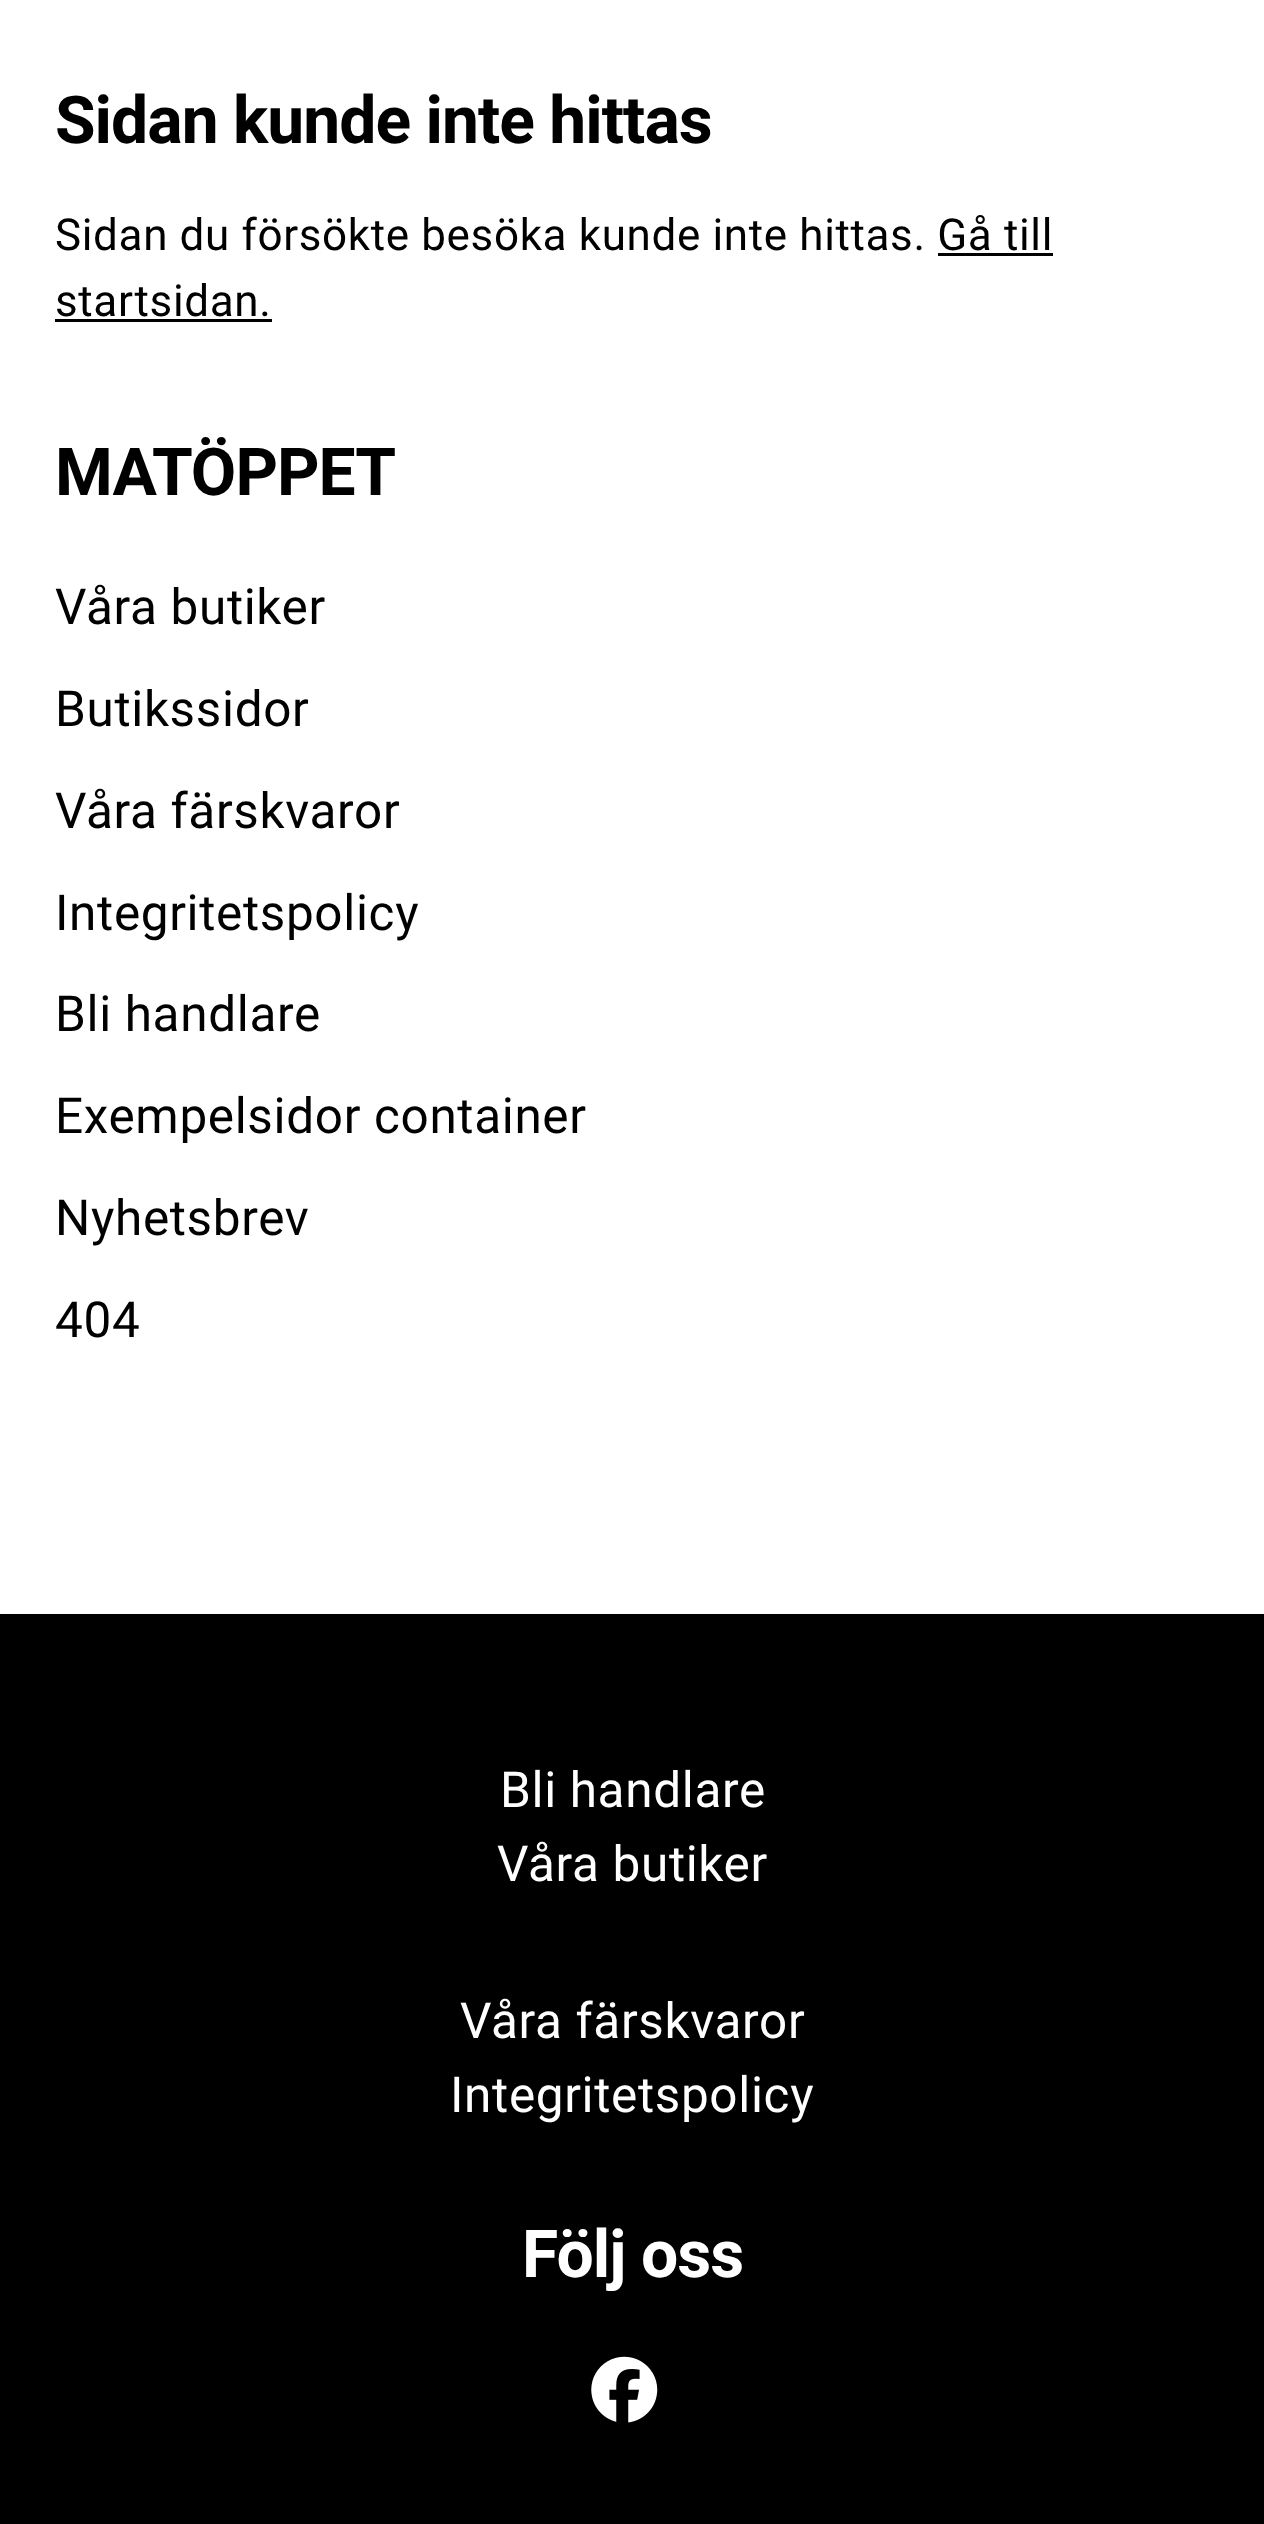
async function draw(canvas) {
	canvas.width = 1264;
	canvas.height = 2524;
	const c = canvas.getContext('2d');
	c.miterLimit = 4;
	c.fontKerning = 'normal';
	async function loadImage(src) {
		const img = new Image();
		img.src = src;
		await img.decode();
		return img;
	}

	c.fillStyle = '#fff';
	c.fillRect(0, 0, 1264, 2524);
	c.letterSpacing = '-1px';
	c.font = 'bold 66px Roboto';
	c.fillStyle = '#000';
	c.fillText('Sidan kunde inte hittas', 55, 143);
	c.letterSpacing = '0.65px';
	c.font = '44px Roboto';
	c.fillText('Sidan du försökte besöka kunde inte hittas. Gå till', 55, 250);
	c.fillText('startsidan.', 55, 316);
	c.fillRect(938, 253, 115, 3);
	c.fillRect(55, 319, 217, 3);
	c.letterSpacing = '-1px';
	c.font = 'bold 66px Roboto';
	c.fillText('MATÖPPET', 55, 495);
	c.letterSpacing = '0.65px';
	c.font = '49.5px Roboto';
	for (const [text, x, y] of [
		['Våra butiker', 55, 624],
		['Butikssidor', 55, 726],
		['Våra färskvaror', 55, 828],
		['Integritetspolicy', 55, 930],
		['Bli handlare', 55, 1031],
		['Exempelsidor container', 55, 1133],
		['Nyhetsbrev', 55, 1235],
		['404', 55, 1337],
	]) {
		c.fillText(text, x, y);
	}
	c.fillRect(0, 1614, 1264, 910);
	c.fillStyle = '#fff';
	for (const [text, x, y] of [
		['Bli handlare', 500, 1807],
		['Våra butiker', 497, 1881],
		['Våra färskvaror', 460, 2038],
		['Integritetspolicy', 450, 2112],
	]) {
		c.fillText(text, x, y);
	}
	c.letterSpacing = '-1px';
	c.font = 'bold 66px Roboto';
	c.fillText('Följ oss', 522, 2277);
	c.drawImage(await loadImage('img1.png'), 591, 2356, 67, 67);
}

draw(document.querySelector('canvas'));
